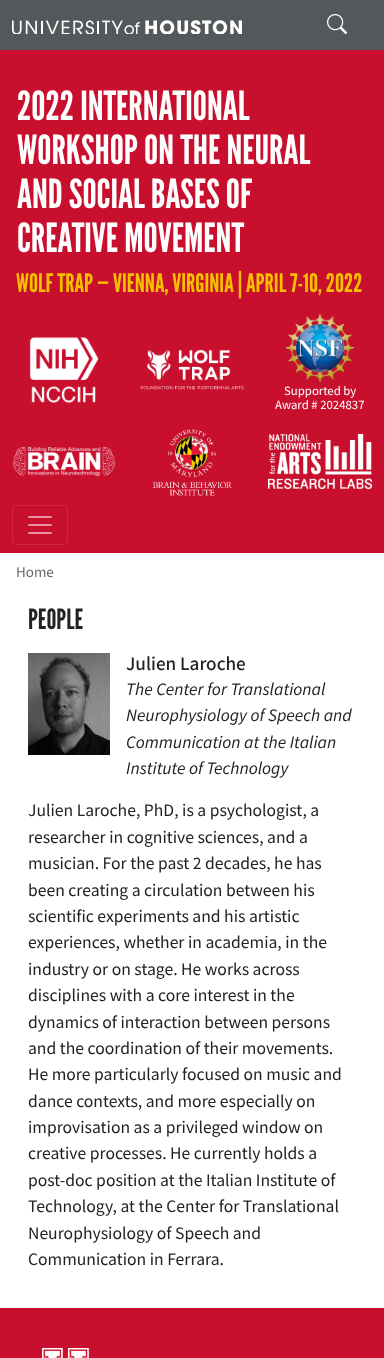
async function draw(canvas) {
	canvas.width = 384;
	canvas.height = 1358;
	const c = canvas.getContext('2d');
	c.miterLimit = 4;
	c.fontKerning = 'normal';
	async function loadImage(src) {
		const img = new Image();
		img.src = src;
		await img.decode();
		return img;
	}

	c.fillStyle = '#fff';
	c.fillRect(0, 0, 384, 1358);
	c.fillStyle = '#54585a';
	c.fillRect(0, 0, 384, 50);
	c.drawImage(await loadImage('img1.png'), 12, 20, 230, 14);
	c.drawImage(await loadImage('img2.png'), 327, 14, 20, 20);
	c.fillStyle = '#c8102e';
	c.fillRect(0, 50, 384, 503);
	c.font = '40px League Gothic';
	c.fillStyle = '#fffeff';
	for (const [text, x, y] of [
		['2022 INTERNATIONAL', 17, 120],
		['WORKSHOP ON THE NEURAL', 17, 164],
		['AND SOCIAL BASES OF', 17, 208],
		['CREATIVE MOVEMENT', 17, 252],
	]) {
		c.fillText(text, x, y);
	}
	c.font = '25.6px League Gothic';
	c.fillStyle = '#f6be00';
	c.fillText('WOLF TRAP — VIENNA, VIRGINIA | APRIL 7-10, 2022', 16, 292);
	c.drawImage(await loadImage('img3.png'), 29, 337, 70, 66);
	c.drawImage(await loadImage('img4.png'), 140, 349, 104, 41);
	c.drawImage(await loadImage('img5.png'), 286, 314, 69, 69);
	c.font = '12.75px Source Sans Pro';
	c.fillStyle = '#fffeff';
	c.fillText('Supported by', 284, 395);
	c.fillText('Award # 2024837', 275, 409);
	c.drawImage(await loadImage('img6.png'), 12, 447, 104, 29);
	c.drawImage(await loadImage('img7.png'), 152, 429, 80, 67);
	c.drawImage(await loadImage('img8.png'), 268, 434, 104, 55);
	c.beginPath();
	c.roundRect(12.5, 505.5, 55, 39, 3.5);
	c.strokeStyle = '#ce2843';
	c.stroke();
	c.drawImage(await loadImage('img9.png'), 28, 516, 24, 18);
	c.font = '15px Source Sans Pro';
	c.fillStyle = '#666';
	c.fillText('Home', 16, 577);
	c.font = '28px League Gothic';
	c.fillStyle = '#222';
	c.fillText('PEOPLE', 28, 629);
	c.drawImage(await loadImage('img10.png'), 28, 653, 82, 102);
	c.font = '500 19.25px "Source Sans 3"';
	c.fillText('Julien Laroche', 126, 670);
	c.font = 'italic 17.6px Source Sans Pro';
	for (const [text, x, y] of [
		['The Center for Translational', 126, 695],
		['Neurophysiology of Speech and', 126, 721],
		['Communication at the Italian', 126, 748],
		['Institute of Technology', 126, 774],
	]) {
		c.fillText(text, x, y);
	}
	c.font = '17.6px Source Sans Pro';
	for (const [text, x, y] of [
		['Julien Laroche, PhD, is a psychologist, a', 28, 816],
		['researcher in cognitive sciences, and a', 28, 843],
		['musician. For the past 2 decades, he has', 28, 869],
		['been creating a circulation between his', 28, 896],
		['scientific experiments and his artistic', 28, 922],
		['experiences, whether in academia, in the', 28, 948],
		['industry or on stage. He works across', 28, 975],
		['disciplines with a core interest in the', 28, 1001],
		['dynamics of interaction between persons', 28, 1028],
		['and the coordination of their movements.', 28, 1054],
		['He more particularly focused on music and', 28, 1080],
		['dance contexts, and more especially on', 28, 1107],
		['improvisation as a privileged window on', 28, 1133],
		['creative processes. He currently holds a', 28, 1159],
		['post-doc position at the Italian Institute of', 28, 1186],
		['Technology, at the Center for Translational', 28, 1212],
		['Neurophysiology of Speech and', 28, 1239],
		['Communication in Ferrara.', 28, 1265],
	]) {
		c.fillText(text, x, y);
	}
	c.fillStyle = '#c8102e';
	c.fillRect(0, 1308, 384, 50);
	c.drawImage(await loadImage('img11.png'), 42, 1348, 48, 10);
}

draw(document.querySelector('canvas'));
